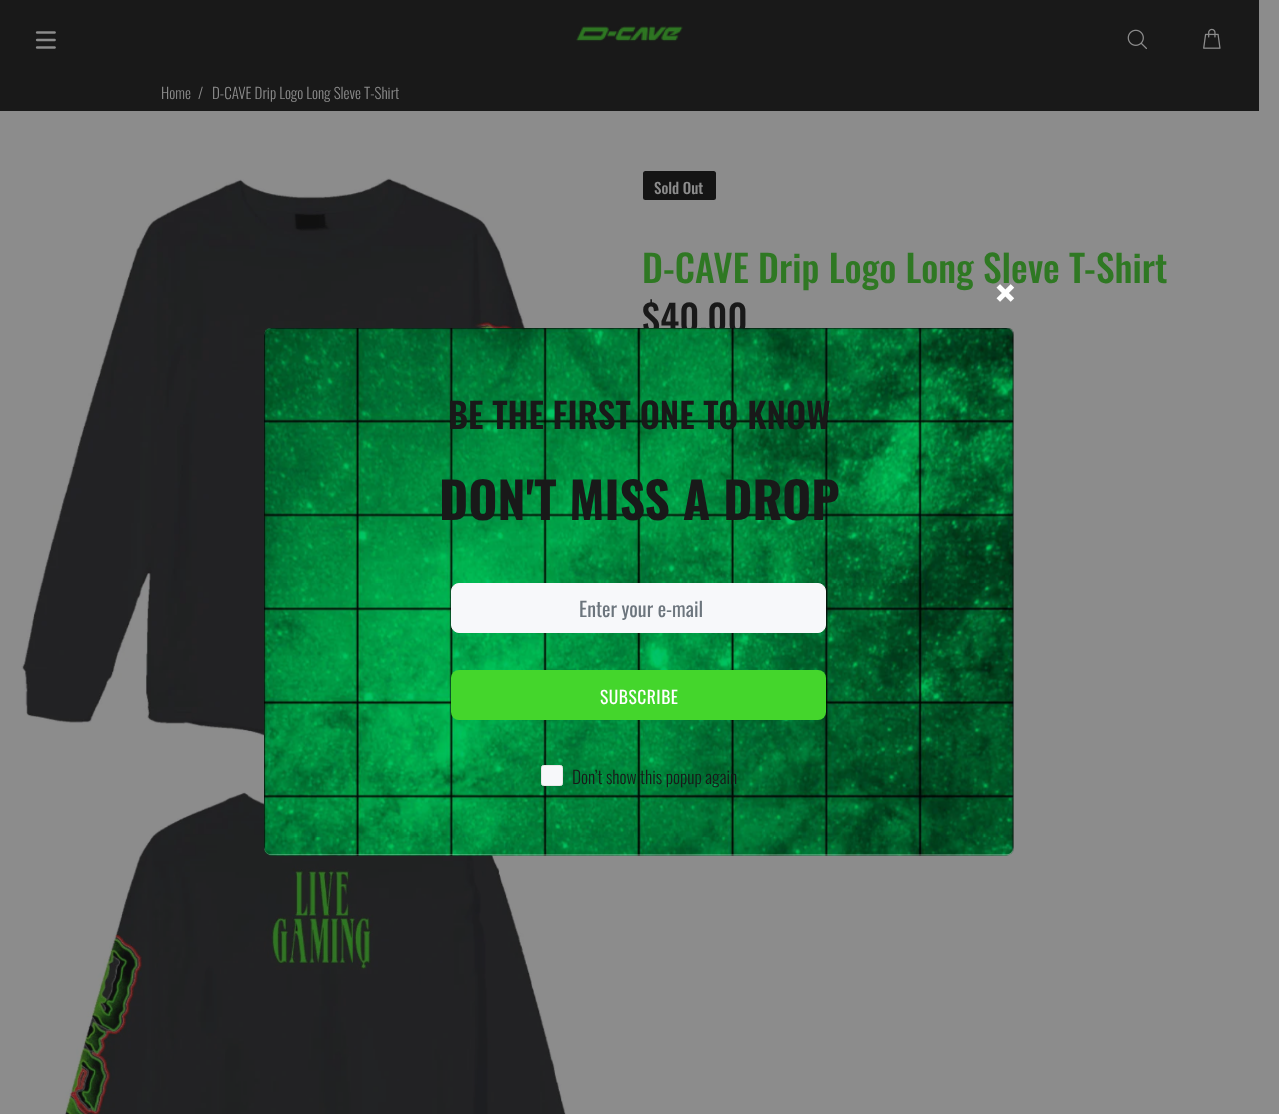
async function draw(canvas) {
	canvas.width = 1279;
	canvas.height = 1114;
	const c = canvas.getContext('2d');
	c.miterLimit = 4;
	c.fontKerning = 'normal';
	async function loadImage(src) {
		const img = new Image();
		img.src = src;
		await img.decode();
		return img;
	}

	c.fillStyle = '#8c8c8c';
	c.fillRect(0, 0, 1279, 1114);
	c.fillStyle = '#191919';
	c.fillRect(0, 0, 1259, 111);
	c.drawImage(await loadImage('img1.png'), 35, 31, 21, 18);
	c.drawImage(await loadImage('img2.png'), 576, 26, 107, 16);
	c.drawImage(await loadImage('img3.png'), 1127, 29, 20, 21);
	c.drawImage(await loadImage('img4.png'), 1203, 28, 18, 21);
	c.font = '300 15px Oswald';
	c.fillStyle = '#8c8c8c';
	for (const [text, x, y] of [
		['Home', 161, 99],
		['/', 198, 99],
		['D-CAVE Drip Logo Long Sleve T-Shirt', 212, 99],
	]) {
		c.fillText(text, x, y);
	}
	c.drawImage(await loadImage('img5.png'), 21, 177, 584, 565);
	c.drawImage(await loadImage('img6.png'), 65, 791, 501, 323);
	c.fillStyle = '#141414';
	c.beginPath();
	c.roundRect(643, 171, 73, 29, 2.5);
	c.fill();
	c.font = '500 15px Oswald';
	c.fillStyle = '#8c8c8c';
	c.fillText('Sold Out', 654, 194);
	c.letterSpacing = '0.05px';
	c.font = '500 37.5px Oswald';
	c.fillStyle = '#2f7823';
	c.fillText('D-CAVE Drip Logo Long Sleve T-Shirt', 642, 283);
	c.letterSpacing = '0px';
	c.fillStyle = '#191919';
	c.fillText('$40.00', 642, 333);
	c.drawImage(await loadImage('img7.png'), 996, 284, 19, 18);
	c.fillStyle = '#fff';
	c.beginPath();
	c.roundRect(264, 328, 750, 527, 8);
	c.fill();
	c.drawImage(await loadImage('img8.png'), 264, 328, 750, 528);
	c.font = '600 35px Oswald';
	c.fillStyle = '#191919';
	c.fillText('BE THE FIRST ONE TO KNOW', 448, 429);
	c.font = 'bold 50px Oswald';
	c.fillText('DON\'T MISS A DROP', 439, 520);
	c.fillStyle = '#f7f8fa';
	c.beginPath();
	c.roundRect(451.5, 583.5, 374, 49, 7.5);
	c.fill();
	c.strokeStyle = '#f7f8fa';
	c.stroke();
	c.font = '20px Oswald';
	c.fillStyle = '#6c757d';
	c.fillText('Enter your e-mail', 579, 617);
	c.fillStyle = '#44d62c';
	c.beginPath();
	c.roundRect(451, 670, 375, 50, 8);
	c.fill();
	c.letterSpacing = '0.5px';
	c.font = '17.5px Oswald';
	c.fillStyle = '#fff';
	c.fillText('SUBSCRIBE', 600, 704);
	c.fillStyle = '#f7f8fa';
	c.beginPath();
	c.roundRect(541.5, 765.5, 21, 20, 2);
	c.fill();
	c.strokeStyle = '#e9e7e7';
	c.stroke();
	c.letterSpacing = '0px';
	c.font = '300 17.5px Oswald';
	c.fillStyle = '#191919';
	c.fillText('Don’t show this popup again', 572, 784);
}

draw(document.querySelector('canvas'));
